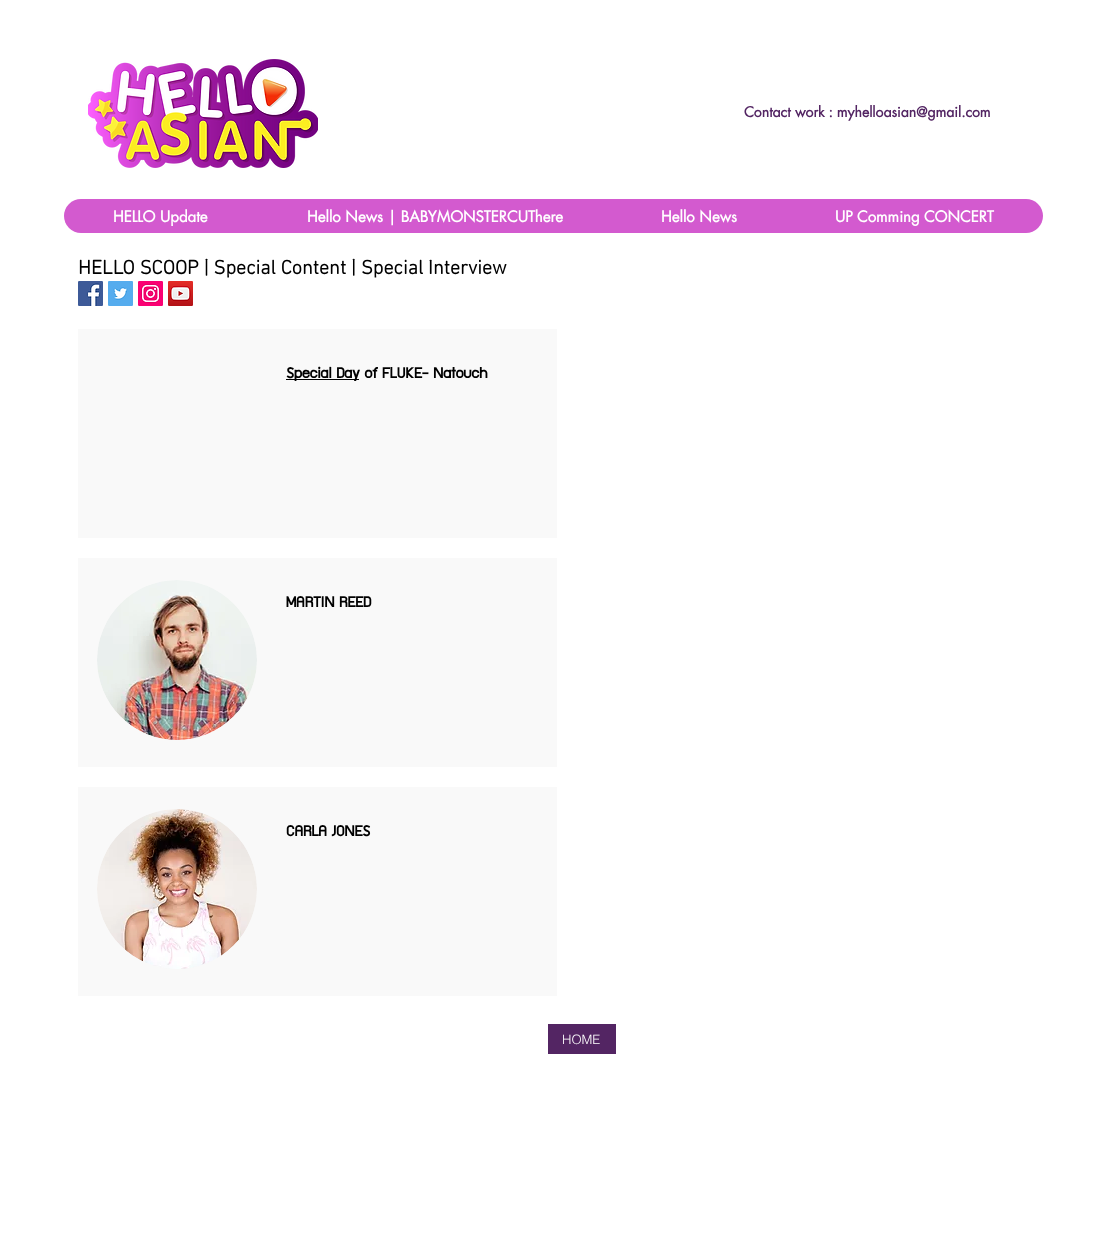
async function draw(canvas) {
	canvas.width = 1107;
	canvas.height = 1251;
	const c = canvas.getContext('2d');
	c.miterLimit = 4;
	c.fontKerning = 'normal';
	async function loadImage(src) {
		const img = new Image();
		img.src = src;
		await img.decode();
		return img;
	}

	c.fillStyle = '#fff';
	c.fillRect(0, 0, 1107, 1251);
	c.drawImage(await loadImage('img1.png'), 88, 59, 230, 109);
	c.font = 'bold 14px futura';
	c.fillStyle = '#532563';
	c.fillText('Contact work : myhelloasian@gmail.com', 744, 117);
	c.fillStyle = '#d35acf';
	c.beginPath();
	c.roundRect(64, 199, 979, 34, 17);
	c.fill();
	c.font = 'bold 15px futura';
	c.fillStyle = '#fff';
	for (const [text, x, y] of [
		['HELLO Update', 113, 222],
		['Hello News | BABYMONSTERCUThere', 307, 222],
		['Hello News', 661, 222],
		['UP Comming CONCERT', 835, 222],
	]) {
		c.fillText(text, x, y);
	}
	c.font = 'bold 20px "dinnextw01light"';
	c.fillStyle = '#000';
	c.fillText('HELLO SCOOP | Special Content | Special Interview', 78, 274);
	c.drawImage(await loadImage('img2.png'), 78, 281, 25, 25);
	c.drawImage(await loadImage('img3.png'), 108, 281, 25, 25);
	c.drawImage(await loadImage('img4.png'), 138, 281, 25, 25);
	c.drawImage(await loadImage('img5.png'), 168, 281, 25, 25);
	c.fillStyle = '#f9f9f9';
	c.fillRect(78, 329, 479, 209);
	c.fillStyle = '#000';
	c.fillRect(286, 379, 73, 1);
	c.font = 'bold 17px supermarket';
	c.fillText('Special Day of FLUKE- Natouch', 286, 378);
	c.fillStyle = '#f9f9f9';
	c.fillRect(78, 558, 479, 209);
	c.drawImage(await loadImage('img6.png'), 97, 580, 160, 160);
	c.fillStyle = '#000';
	c.fillText('MARTIN REED', 286, 607);
	c.fillStyle = '#f9f9f9';
	c.fillRect(78, 787, 479, 209);
	c.drawImage(await loadImage('img7.png'), 97, 809, 160, 160);
	c.fillStyle = '#000';
	c.fillText('CARLA JONES', 286, 836);
	c.fillStyle = '#532563';
	c.fillRect(548, 1024, 68, 30);
	c.font = '300 13px helvetica';
	c.fillStyle = '#fff';
	c.fillText('HOME', 562, 1044);
}

draw(document.querySelector('canvas'));
